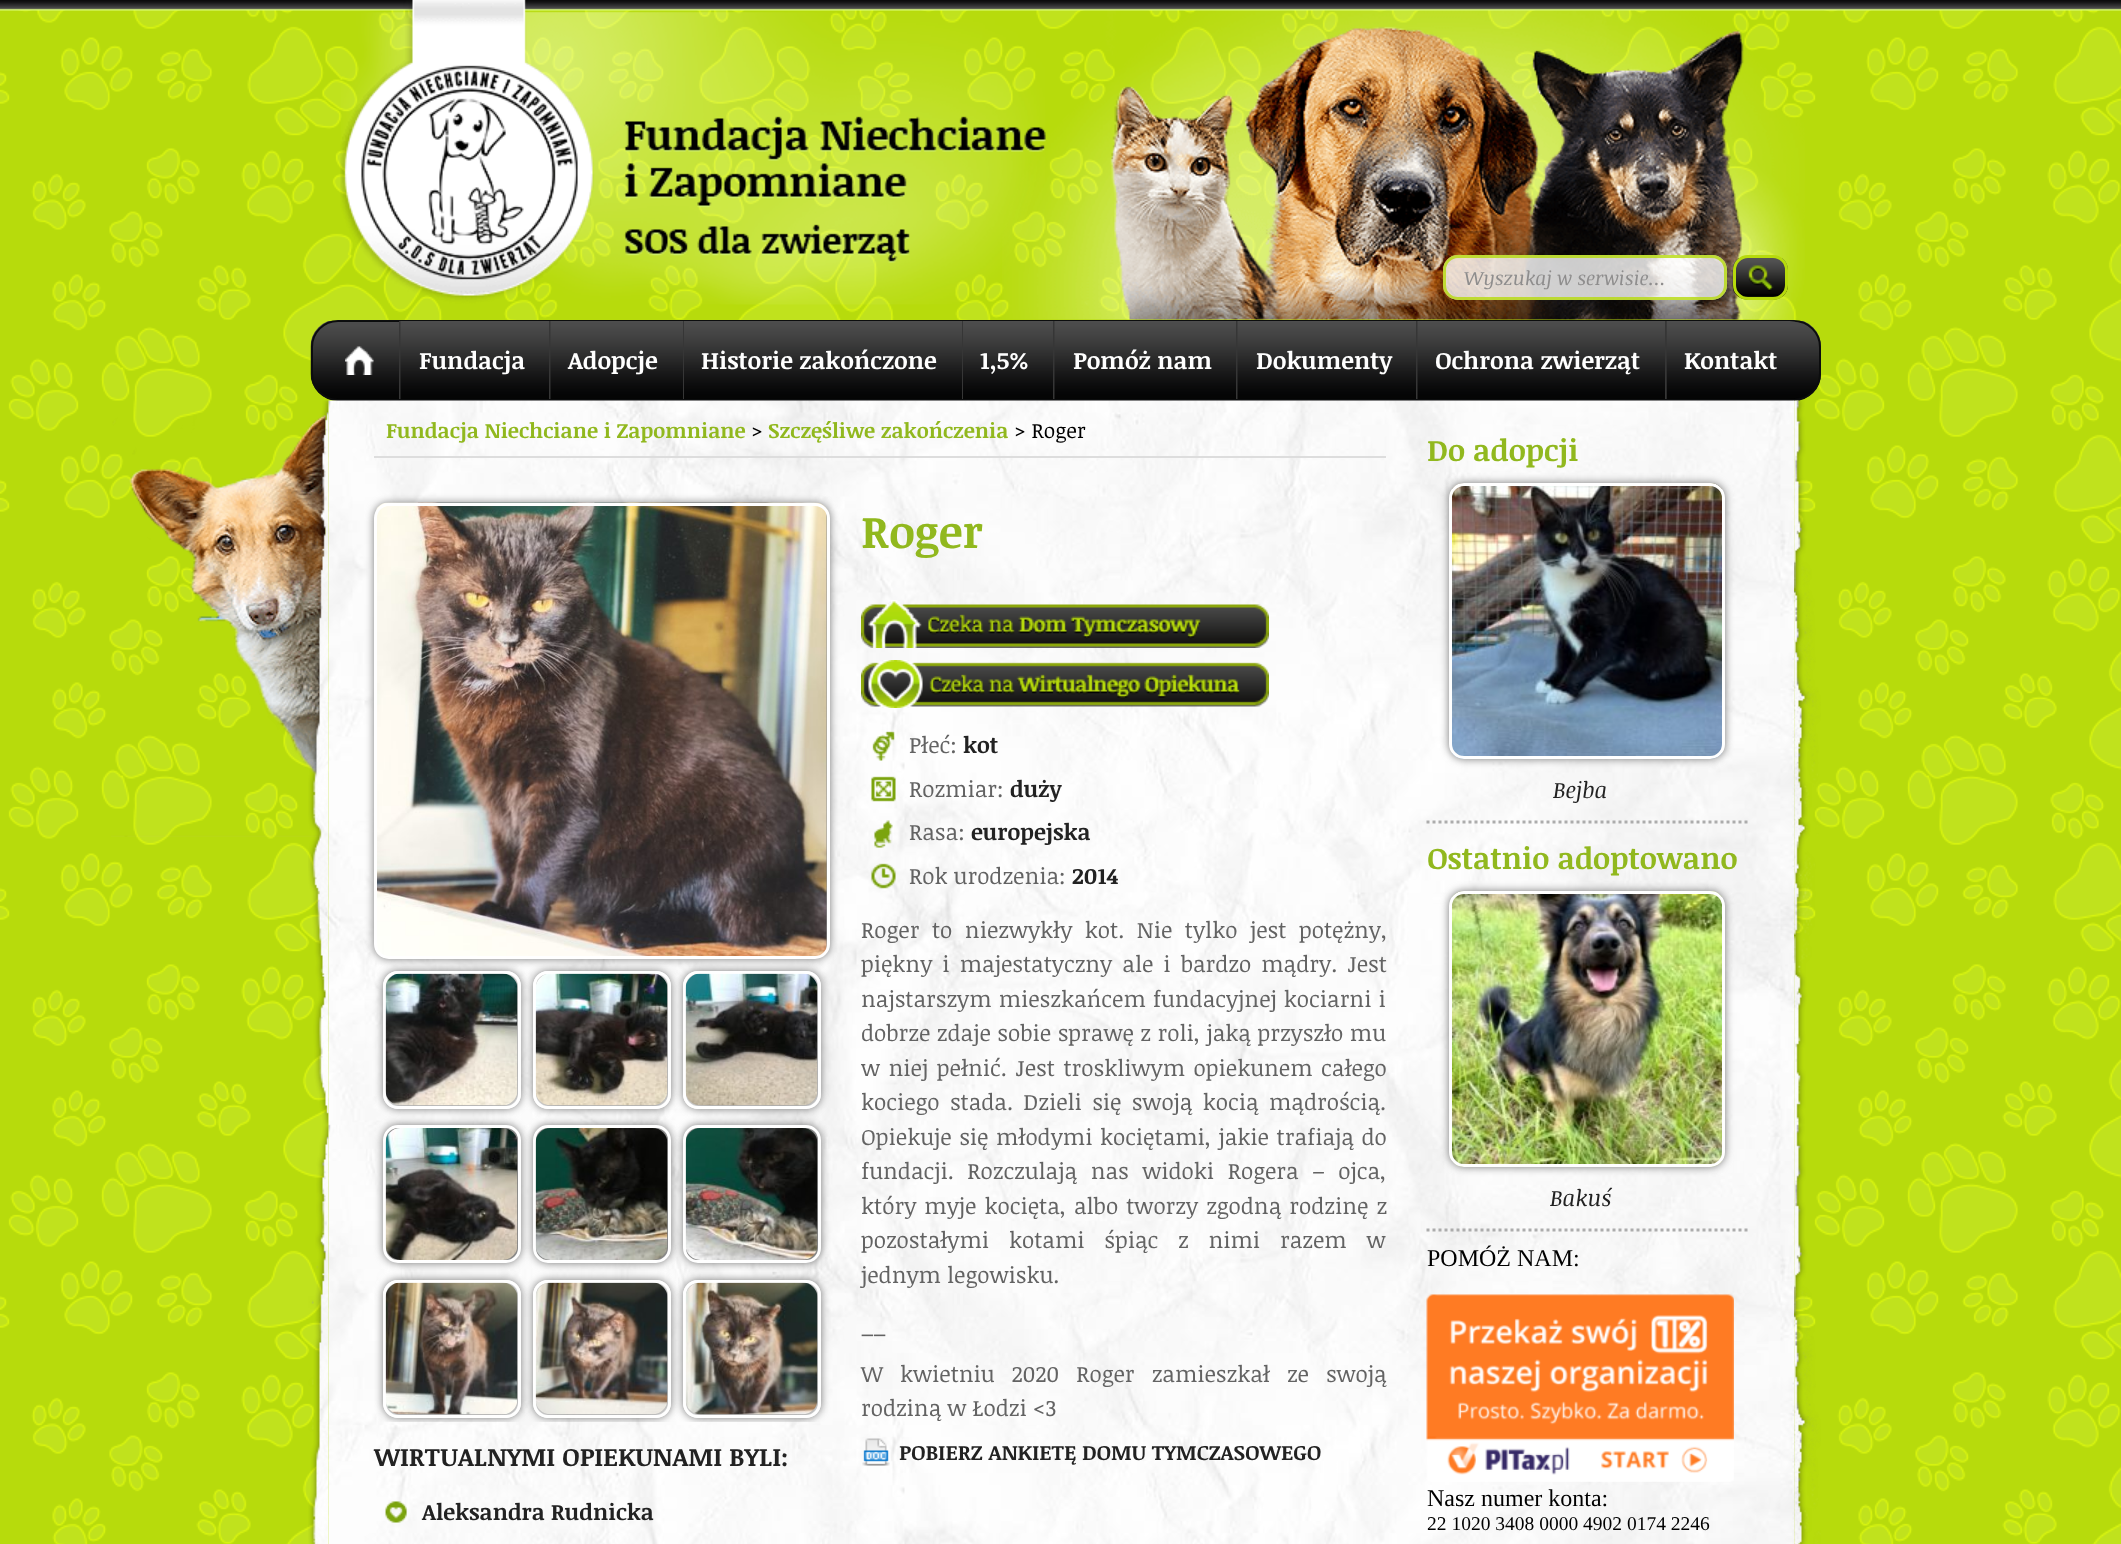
async function draw(canvas) {
	canvas.width = 2121;
	canvas.height = 1544;
	const c = canvas.getContext('2d');
	c.miterLimit = 4;
	c.fontKerning = 'normal';
	async function loadImage(src) {
		const img = new Image();
		img.src = src;
		await img.decode();
		return img;
	}

	c.fillStyle = '#fff';
	c.fillRect(0, 0, 2121, 1544);
	c.drawImage(await loadImage('img1.png'), 0, 10, 2121, 1534);
	c.drawImage(await loadImage('img5.png'), 1002, 10, 803, 310);
	c.drawImage(await loadImage('img2.png'), 0, 0, 2121, 11);
	c.drawImage(await loadImage('img3.png'), 111, 415, 215, 422);
	c.drawImage(await loadImage('img4.png'), 340, 0, 706, 305);
	c.fillStyle = '#ffffffcc';
	c.beginPath();
	c.roundRect(1443, 255, 284, 45, 15);
	c.fill();
	c.beginPath();
	c.roundRect(1444.5, 256.5, 281, 42, 13.5);
	c.strokeStyle = '#b7db0ccc';
	c.lineWidth = 3;
	c.stroke();
	c.font = 'italic 19.5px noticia';
	c.fillStyle = '#8e8d8d';
	c.fillText('Wyszukaj w serwisie...', 1464, 285);
	c.drawImage(await loadImage('img6.png'), 1732, 258, 56, 42);
	c.beginPath();
	c.roundRect(1734.5, 256.5, 52, 42, 13.5);
	c.strokeStyle = '#b7db0c';
	c.stroke();
	c.drawImage(await loadImage('img7.png'), 310, 321, 1511, 80);
	c.beginPath();
	c.roundRect(312, 321, 1508, 79, 26);
	c.strokeStyle = '#0c0d0e';
	c.lineWidth = 2;
	c.stroke();
	c.drawImage(await loadImage('img8.png'), 345, 346, 29, 29);
	c.fillStyle = '#363636';
	c.fillRect(399, 321, 2, 78);
	c.drawImage(await loadImage('img9.png'), 400, 321, 149, 78);
	c.fillRect(549, 321, 2, 78);
	c.font = 'bold 24px noticia';
	c.fillStyle = '#fff';
	c.fillText('Fundacja', 419, 369);
	c.drawImage(await loadImage('img10.png'), 550, 321, 133, 78);
	c.fillStyle = '#363636';
	c.fillRect(683, 321, 1, 78);
	c.fillStyle = '#fff';
	c.fillText('Adopcje', 568, 369);
	c.drawImage(await loadImage('img11.png'), 684, 321, 278, 78);
	c.fillStyle = '#363636';
	c.fillRect(962, 321, 1, 78);
	c.fillStyle = '#fff';
	c.fillText('Historie zakończone', 701, 369);
	c.drawImage(await loadImage('img12.png'), 963, 321, 90, 78);
	c.fillStyle = '#363636';
	c.fillRect(1053, 321, 2, 78);
	c.fillStyle = '#fff';
	c.fillText('1,5%', 980, 369);
	c.drawImage(await loadImage('img13.png'), 1054, 321, 182, 78);
	c.fillStyle = '#363636';
	c.fillRect(1236, 321, 2, 78);
	c.fillStyle = '#fff';
	c.fillText('Pomóż nam', 1073, 369);
	c.drawImage(await loadImage('img14.png'), 1237, 321, 179, 78);
	c.fillStyle = '#363636';
	c.fillRect(1416, 321, 2, 78);
	c.fillStyle = '#fff';
	c.fillText('Dokumenty', 1256, 369);
	c.drawImage(await loadImage('img15.png'), 1417, 321, 248, 78);
	c.fillStyle = '#363636';
	c.fillRect(1665, 321, 2, 78);
	c.fillStyle = '#fff';
	c.fillText('Ochrona zwierząt', 1435, 369);
	c.drawImage(await loadImage('img16.png'), 1666, 321, 133, 78);
	c.fillText('Kontakt', 1684, 369);
	c.drawImage(await loadImage('img17.png'), 308, 400, 1513, 1144);
	c.drawImage(await loadImage('img18.png'), 328, 400, 1466, 1144);
	c.fillStyle = '#ddd';
	c.fillRect(374, 456, 1012, 2);
	c.font = 'bold 21px noticia';
	c.fillStyle = '#91b81e';
	c.fillText('Fundacja Niechciane i Zapomniane', 386, 438);
	c.font = '21px noticia';
	c.fillStyle = '#000';
	c.fillText('>', 751, 438);
	c.font = 'bold 21px noticia';
	c.fillStyle = '#91b81e';
	c.fillText('Szczęśliwe zakończenia', 768, 438);
	c.font = '21px noticia';
	c.fillStyle = '#000';
	c.fillText('> Roger', 1014, 438);
	c.font = 'bold 45px noticia';
	c.fillStyle = '#91b81e';
	c.fillText('Roger', 861, 548);
	c.drawImage(await loadImage('img19.png'), 861, 600, 408, 48);
	c.drawImage(await loadImage('img20.png'), 861, 660, 408, 48);
	c.drawImage(await loadImage('img21.png'), 872, 731, 23, 30);
	c.font = '22.5px noticia';
	c.fillStyle = '#636363';
	c.fillText('Płeć:', 909, 753);
	c.font = 'bold 22.5px noticia';
	c.fillStyle = '#222';
	c.fillText('kot', 963, 753);
	c.drawImage(await loadImage('img22.png'), 871, 776, 25, 26);
	c.font = '22.5px noticia';
	c.fillStyle = '#636363';
	c.fillText('Rozmiar:', 909, 797);
	c.font = 'bold 22.5px noticia';
	c.fillStyle = '#222';
	c.fillText('duży', 1010, 797);
	c.drawImage(await loadImage('img23.png'), 874, 820, 19, 28);
	c.font = '22.5px noticia';
	c.fillStyle = '#636363';
	c.fillText('Rasa:', 909, 840);
	c.font = 'bold 22.5px noticia';
	c.fillStyle = '#222';
	c.fillText('europejska', 971, 840);
	c.drawImage(await loadImage('img24.png'), 871, 863, 25, 26);
	c.font = '22.5px noticia';
	c.fillStyle = '#636363';
	c.fillText('Rok urodzenia:', 909, 884);
	c.font = 'bold 22.5px noticia';
	c.fillStyle = '#222';
	c.fillText('2014', 1072, 884);
	c.wordSpacing = '6.5px';
	c.font = '22.5px noticia';
	c.fillStyle = '#636363';
	c.fillText('Roger to niezwykły kot. Nie tylko jest potężny,', 861, 938);
	c.wordSpacing = '4px';
	c.fillText('piękny i majestatyczny ale i bardzo mądry. Jest', 861, 972);
	c.wordSpacing = '1px';
	c.fillText('najstarszym mieszkańcem fundacyjnej kociarni i', 861, 1007);
	c.wordSpacing = '0.5px';
	c.fillText('dobrze zdaje sobie sprawę z roli, jaką przyszło mu', 861, 1041);
	c.wordSpacing = '2.5px';
	c.fillText('w niej pełnić. Jest troskliwym opiekunem całego', 861, 1076);
	c.wordSpacing = '4.25px';
	c.fillText('kociego stada. Dzieli się swoją kocią mądrością.', 861, 1110);
	c.wordSpacing = '1.5px';
	c.fillText('Opiekuje się młodymi kociętami, jakie trafiają do', 861, 1145);
	c.wordSpacing = '7.5px';
	c.fillText('fundacji. Rozczulają nas widoki Rogera – ojca,', 861, 1179);
	c.wordSpacing = '2px';
	c.fillText('który myje kocięta, albo tworzy zgodną rodzinę z', 861, 1214);
	c.wordSpacing = '13.75px';
	c.fillText('pozostałymi kotami śpiąc z nimi razem w', 861, 1248);
	c.wordSpacing = '0px';
	c.fillText('jednym legowisku.', 861, 1283);
	c.fillText('__', 861, 1332);
	c.wordSpacing = '11px';
	c.fillText('W kwietniu 2020 Roger zamieszkał ze swoją', 861, 1382);
	c.wordSpacing = '0px';
	c.fillText('rodziną w Łodzi <3', 861, 1416);
	c.drawImage(await loadImage('img25.png'), 862, 1438, 28, 28);
	c.font = 'bold 21px noticia';
	c.fillStyle = '#222';
	c.fillText('POBIERZ ANKIETĘ DOMU TYMCZASOWEGO', 899, 1460);
	c.save();
	c.beginPath();
	c.moveTo(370, 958);
	c.lineTo(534, 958);
	c.lineTo(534, 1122);
	c.lineTo(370, 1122);
	c.closePath();
	c.moveTo(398, 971);
	c.lineTo(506, 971);
	c.bezierCurveTo(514.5, 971, 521, 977.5, 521, 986);
	c.lineTo(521, 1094);
	c.bezierCurveTo(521, 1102.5, 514.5, 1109, 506, 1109);
	c.lineTo(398, 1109);
	c.bezierCurveTo(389.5, 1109, 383, 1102.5, 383, 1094);
	c.lineTo(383, 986);
	c.bezierCurveTo(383, 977.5, 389.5, 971, 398, 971);
	c.closePath();
	c.clip('evenodd');
	c.fillStyle = '#777';
	c.filter = 'blur(4px)';
	c.beginPath();
	c.roundRect(383, 971, 138, 138, 15);
	c.fill();
	c.filter = 'none';
	c.restore();
	c.beginPath();
	c.roundRect(384.5, 972.5, 135, 135, 13.5);
	c.strokeStyle = '#fff';
	c.lineWidth = 3;
	c.stroke();
	c.save();
	c.beginPath();
	c.moveTo(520, 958);
	c.lineTo(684, 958);
	c.lineTo(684, 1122);
	c.lineTo(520, 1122);
	c.closePath();
	c.moveTo(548, 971);
	c.lineTo(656, 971);
	c.bezierCurveTo(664.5, 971, 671, 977.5, 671, 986);
	c.lineTo(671, 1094);
	c.bezierCurveTo(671, 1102.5, 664.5, 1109, 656, 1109);
	c.lineTo(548, 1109);
	c.bezierCurveTo(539.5, 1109, 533, 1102.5, 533, 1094);
	c.lineTo(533, 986);
	c.bezierCurveTo(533, 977.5, 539.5, 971, 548, 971);
	c.closePath();
	c.clip('evenodd');
	c.fillStyle = '#777';
	c.filter = 'blur(4px)';
	c.beginPath();
	c.roundRect(533, 971, 138, 138, 15);
	c.fill();
	c.filter = 'none';
	c.restore();
	c.beginPath();
	c.roundRect(534.5, 972.5, 135, 135, 13.5);
	c.stroke();
	c.save();
	c.beginPath();
	c.moveTo(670, 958);
	c.lineTo(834, 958);
	c.lineTo(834, 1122);
	c.lineTo(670, 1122);
	c.closePath();
	c.moveTo(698, 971);
	c.lineTo(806, 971);
	c.bezierCurveTo(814.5, 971, 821, 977.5, 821, 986);
	c.lineTo(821, 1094);
	c.bezierCurveTo(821, 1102.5, 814.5, 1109, 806, 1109);
	c.lineTo(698, 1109);
	c.bezierCurveTo(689.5, 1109, 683, 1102.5, 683, 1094);
	c.lineTo(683, 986);
	c.bezierCurveTo(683, 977.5, 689.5, 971, 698, 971);
	c.closePath();
	c.clip('evenodd');
	c.fillStyle = '#777';
	c.filter = 'blur(4px)';
	c.beginPath();
	c.roundRect(683, 971, 138, 138, 15);
	c.fill();
	c.filter = 'none';
	c.restore();
	c.beginPath();
	c.roundRect(684.5, 972.5, 135, 135, 13.5);
	c.stroke();
	c.fillStyle = '#777';
	c.filter = 'blur(4px)';
	c.beginPath();
	c.roundRect(374, 503, 456, 456, 15);
	c.fill();
	c.filter = 'none';
	c.drawImage(await loadImage('img26.png'), 376, 502, 451, 457);
	c.beginPath();
	c.roundRect(375.5, 504.5, 453, 453, 13.5);
	c.stroke();
	c.save();
	c.beginPath();
	c.roundRect(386, 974, 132, 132, 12);
	c.clip();
	c.filter = 'blur(4px)';
	c.beginPath();
	c.roundRect(386, 974, 132, 132, 15);
	c.fill();
	c.filter = 'none';
	c.restore();
	c.drawImage(await loadImage('img27.png'), 385, 973, 133, 133);
	c.save();
	c.beginPath();
	c.roundRect(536, 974, 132, 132, 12);
	c.clip();
	c.filter = 'blur(4px)';
	c.beginPath();
	c.roundRect(536, 974, 132, 132, 15);
	c.fill();
	c.filter = 'none';
	c.restore();
	c.drawImage(await loadImage('img28.png'), 535, 973, 133, 133);
	c.save();
	c.beginPath();
	c.roundRect(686, 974, 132, 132, 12);
	c.clip();
	c.filter = 'blur(4px)';
	c.beginPath();
	c.roundRect(686, 974, 132, 132, 15);
	c.fill();
	c.filter = 'none';
	c.restore();
	c.drawImage(await loadImage('img29.png'), 685, 973, 133, 133);
	c.filter = 'blur(4px)';
	c.beginPath();
	c.roundRect(383, 1125, 138, 138, 15);
	c.fill();
	c.filter = 'none';
	c.beginPath();
	c.roundRect(384.5, 1126.5, 135, 135, 13.5);
	c.stroke();
	c.save();
	c.beginPath();
	c.roundRect(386, 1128, 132, 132, 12);
	c.clip();
	c.filter = 'blur(4px)';
	c.beginPath();
	c.roundRect(386, 1128, 132, 132, 15);
	c.fill();
	c.filter = 'none';
	c.restore();
	c.drawImage(await loadImage('img30.png'), 385, 1128, 133, 132);
	c.filter = 'blur(4px)';
	c.beginPath();
	c.roundRect(533, 1125, 138, 138, 15);
	c.fill();
	c.filter = 'none';
	c.beginPath();
	c.roundRect(534.5, 1126.5, 135, 135, 13.5);
	c.stroke();
	c.save();
	c.beginPath();
	c.roundRect(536, 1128, 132, 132, 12);
	c.clip();
	c.filter = 'blur(4px)';
	c.beginPath();
	c.roundRect(536, 1128, 132, 132, 15);
	c.fill();
	c.filter = 'none';
	c.restore();
	c.drawImage(await loadImage('img31.png'), 535, 1128, 133, 132);
	c.filter = 'blur(4px)';
	c.beginPath();
	c.roundRect(683, 1125, 138, 138, 15);
	c.fill();
	c.filter = 'none';
	c.beginPath();
	c.roundRect(684.5, 1126.5, 135, 135, 13.5);
	c.stroke();
	c.save();
	c.beginPath();
	c.roundRect(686, 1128, 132, 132, 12);
	c.clip();
	c.filter = 'blur(4px)';
	c.beginPath();
	c.roundRect(686, 1128, 132, 132, 15);
	c.fill();
	c.filter = 'none';
	c.restore();
	c.drawImage(await loadImage('img32.png'), 685, 1128, 133, 132);
	c.save();
	c.beginPath();
	c.rect(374, 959, 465, 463);
	c.clip();
	c.beginPath();
	c.moveTo(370, 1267);
	c.lineTo(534, 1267);
	c.lineTo(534, 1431);
	c.lineTo(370, 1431);
	c.closePath();
	c.moveTo(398, 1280);
	c.lineTo(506, 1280);
	c.bezierCurveTo(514.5, 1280, 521, 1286.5, 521, 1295);
	c.lineTo(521, 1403);
	c.bezierCurveTo(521, 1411.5, 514.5, 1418, 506, 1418);
	c.lineTo(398, 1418);
	c.bezierCurveTo(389.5, 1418, 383, 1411.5, 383, 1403);
	c.lineTo(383, 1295);
	c.bezierCurveTo(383, 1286.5, 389.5, 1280, 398, 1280);
	c.closePath();
	c.clip('evenodd');
	c.filter = 'blur(4px)';
	c.beginPath();
	c.roundRect(383, 1280, 138, 138, 15);
	c.fill();
	c.filter = 'none';
	c.restore();
	c.beginPath();
	c.roundRect(384.5, 1281.5, 135, 135, 13.5);
	c.stroke();
	c.save();
	c.beginPath();
	c.roundRect(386, 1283, 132, 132, 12);
	c.clip();
	c.filter = 'blur(4px)';
	c.beginPath();
	c.roundRect(386, 1283, 132, 132, 15);
	c.fill();
	c.filter = 'none';
	c.restore();
	c.drawImage(await loadImage('img33.png'), 385, 1282, 133, 133);
	c.save();
	c.beginPath();
	c.rect(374, 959, 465, 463);
	c.clip();
	c.beginPath();
	c.moveTo(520, 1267);
	c.lineTo(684, 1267);
	c.lineTo(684, 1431);
	c.lineTo(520, 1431);
	c.closePath();
	c.moveTo(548, 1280);
	c.lineTo(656, 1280);
	c.bezierCurveTo(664.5, 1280, 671, 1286.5, 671, 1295);
	c.lineTo(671, 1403);
	c.bezierCurveTo(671, 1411.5, 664.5, 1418, 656, 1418);
	c.lineTo(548, 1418);
	c.bezierCurveTo(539.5, 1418, 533, 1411.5, 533, 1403);
	c.lineTo(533, 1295);
	c.bezierCurveTo(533, 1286.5, 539.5, 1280, 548, 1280);
	c.closePath();
	c.clip('evenodd');
	c.filter = 'blur(4px)';
	c.beginPath();
	c.roundRect(533, 1280, 138, 138, 15);
	c.fill();
	c.filter = 'none';
	c.restore();
	c.beginPath();
	c.roundRect(534.5, 1281.5, 135, 135, 13.5);
	c.stroke();
	c.save();
	c.beginPath();
	c.roundRect(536, 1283, 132, 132, 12);
	c.clip();
	c.filter = 'blur(4px)';
	c.beginPath();
	c.roundRect(536, 1283, 132, 132, 15);
	c.fill();
	c.filter = 'none';
	c.restore();
	c.drawImage(await loadImage('img34.png'), 535, 1282, 133, 133);
	c.save();
	c.beginPath();
	c.rect(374, 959, 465, 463);
	c.clip();
	c.beginPath();
	c.moveTo(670, 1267);
	c.lineTo(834, 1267);
	c.lineTo(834, 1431);
	c.lineTo(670, 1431);
	c.closePath();
	c.moveTo(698, 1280);
	c.lineTo(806, 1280);
	c.bezierCurveTo(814.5, 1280, 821, 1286.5, 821, 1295);
	c.lineTo(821, 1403);
	c.bezierCurveTo(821, 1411.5, 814.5, 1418, 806, 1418);
	c.lineTo(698, 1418);
	c.bezierCurveTo(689.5, 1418, 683, 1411.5, 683, 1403);
	c.lineTo(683, 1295);
	c.bezierCurveTo(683, 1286.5, 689.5, 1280, 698, 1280);
	c.closePath();
	c.clip('evenodd');
	c.filter = 'blur(4px)';
	c.beginPath();
	c.roundRect(683, 1280, 138, 138, 15);
	c.fill();
	c.filter = 'none';
	c.restore();
	c.beginPath();
	c.roundRect(684.5, 1281.5, 135, 135, 13.5);
	c.stroke();
	c.save();
	c.beginPath();
	c.roundRect(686, 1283, 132, 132, 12);
	c.clip();
	c.filter = 'blur(4px)';
	c.beginPath();
	c.roundRect(686, 1283, 132, 132, 15);
	c.fill();
	c.filter = 'none';
	c.restore();
	c.drawImage(await loadImage('img35.png'), 685, 1282, 133, 133);
	c.font = 'bold 25.5px noticia';
	c.fillStyle = '#222';
	c.fillText('WIRTUALNYMI OPIEKUNAMI BYLI:', 374, 1466);
	c.drawImage(await loadImage('img36.png'), 385, 1501, 22, 22);
	c.font = 'bold 22.5px noticia';
	c.fillText('Aleksandra Rudnicka', 422, 1520);
	c.font = 'bold 30px noticia';
	c.fillStyle = '#91b81e';
	c.fillText('Do adopcji', 1427, 461);
	c.beginPath();
	c.moveTo(1426.5, 822);
	c.lineTo(1749, 822);
	c.strokeStyle = '#acacac';
	c.setLineDash([3, 3]);
	c.stroke();
	c.fillStyle = '#777';
	c.filter = 'blur(4px)';
	c.beginPath();
	c.roundRect(1449, 483, 276, 276, 15);
	c.fill();
	c.filter = 'none';
	c.drawImage(await loadImage('img37.png'), 1452, 483, 270, 276);
	c.beginPath();
	c.roundRect(1450.5, 484.5, 273, 273, 13.5);
	c.strokeStyle = '#fff';
	c.setLineDash([]);
	c.stroke();
	c.font = 'italic 22.5px noticia';
	c.fillStyle = '#222';
	c.fillText('Bejba', 1553, 798);
	c.font = 'bold 30px noticia';
	c.fillStyle = '#91b81e';
	c.fillText('Ostatnio adoptowano', 1427, 869);
	c.beginPath();
	c.moveTo(1426.5, 1230);
	c.lineTo(1749, 1230);
	c.strokeStyle = '#acacac';
	c.setLineDash([3, 3]);
	c.stroke();
	c.fillStyle = '#777';
	c.filter = 'blur(4px)';
	c.beginPath();
	c.roundRect(1449, 891, 276, 276, 15);
	c.fill();
	c.filter = 'none';
	c.drawImage(await loadImage('img38.png'), 1452, 891, 270, 276);
	c.beginPath();
	c.roundRect(1450.5, 892.5, 273, 273, 13.5);
	c.strokeStyle = '#fff';
	c.setLineDash([]);
	c.stroke();
	c.font = 'italic 22.5px noticia';
	c.fillStyle = '#222';
	c.fillText('Bakuś', 1550, 1206);
	c.font = '24px Liberation Serif';
	c.fillStyle = '#000';
	c.fillText('POMÓŻ NAM:', 1427, 1266);
	c.drawImage(await loadImage('img39.png'), 1426, 1294, 308, 188);
	c.fillText('Nasz numer konta:', 1427, 1506);
	c.font = '19.5px Liberation Serif';
	c.fillText('22 1020 3408 0000 4902 0174 2246', 1427, 1530);
}

draw(document.querySelector('canvas'));
